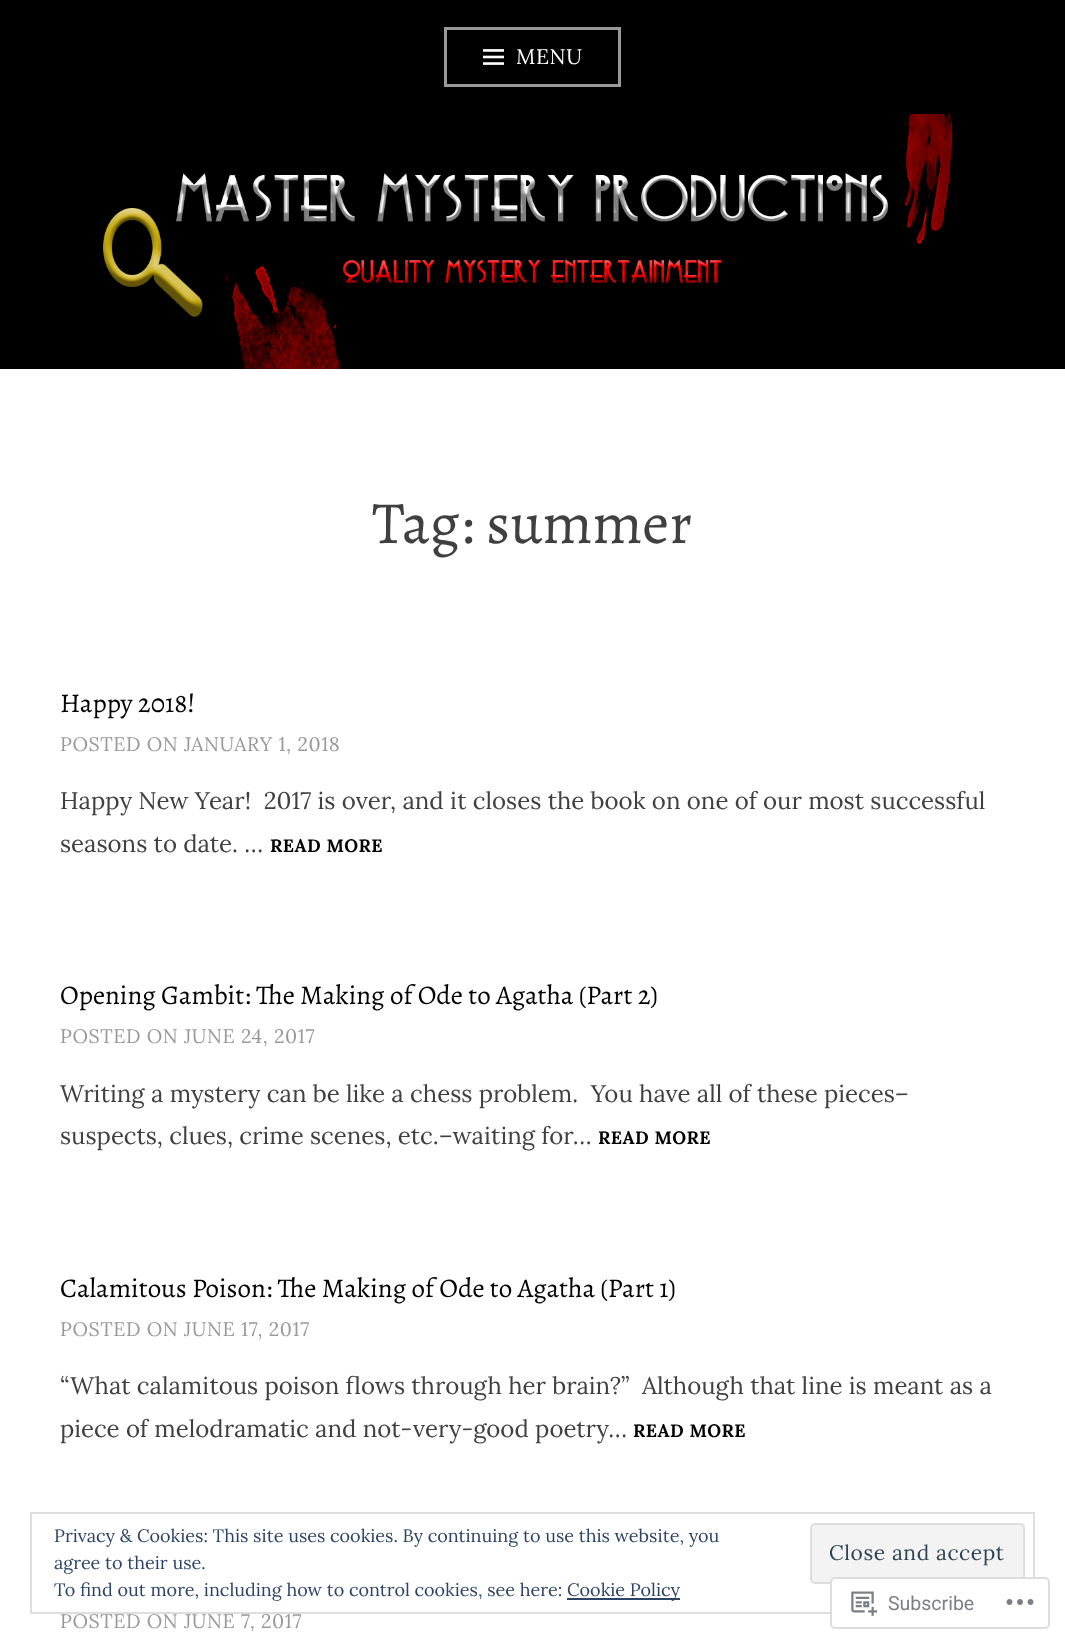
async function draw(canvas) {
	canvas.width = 1065;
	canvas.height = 1644;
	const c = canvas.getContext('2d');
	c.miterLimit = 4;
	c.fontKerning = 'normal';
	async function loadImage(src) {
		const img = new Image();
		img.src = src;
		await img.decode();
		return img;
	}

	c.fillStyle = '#fff';
	c.fillRect(0, 0, 1065, 1644);
	c.fillStyle = '#000';
	c.fillRect(0, 0, 1065, 114);
	c.strokeStyle = '#999';
	c.lineWidth = 3;
	c.strokeRect(445.5, 28.5, 174, 57);
	c.drawImage(await loadImage('img1.png'), 483, 49, 21, 16);
	c.letterSpacing = '0.6px';
	c.font = '21px Lora';
	c.fillStyle = '#fff';
	c.fillText('MENU', 516, 64);
	c.drawImage(await loadImage('img2.png'), 0, 114, 1065, 255);
	c.letterSpacing = '0px';
	c.font = '60px Alegreya';
	c.fillStyle = '#404040';
	c.fillText('Tag: summer', 372, 543);
	c.font = '27px Alegreya';
	c.fillStyle = '#000';
	c.fillText('Happy 2018!', 60, 712);
	c.letterSpacing = '0.6px';
	c.font = '19.5px Lora';
	c.fillStyle = '#999';
	c.fillText('POSTED ON JANUARY 1, 2018', 60, 751);
	c.letterSpacing = '0px';
	c.font = '24px Lora';
	c.fillStyle = '#404040';
	c.fillText('Happy New Year!  2017 is over, and it closes the book on one of our most successful', 60, 809);
	c.fillText('seasons to date. …', 60, 852);
	c.letterSpacing = '0.5px';
	c.font = 'bold 18px Lora';
	c.fillStyle = '#000';
	c.fillText('READ MORE', 270, 852);
	c.letterSpacing = '0px';
	c.font = '27px Alegreya';
	c.fillText('Opening Gambit: The Making of Ode to Agatha (Part 2)', 60, 1004);
	c.letterSpacing = '0.6px';
	c.font = '19.5px Lora';
	c.fillStyle = '#999';
	c.fillText('POSTED ON JUNE 24, 2017', 60, 1043);
	c.letterSpacing = '0px';
	c.font = '24px Lora';
	c.fillStyle = '#404040';
	c.fillText('Writing a mystery can be like a chess problem.  You have all of these pieces–', 60, 1102);
	c.fillText('suspects, clues, crime scenes, etc.–waiting for…', 60, 1144);
	c.letterSpacing = '0.5px';
	c.font = 'bold 18px Lora';
	c.fillStyle = '#000';
	c.fillText('READ MORE', 598, 1144);
	c.letterSpacing = '0px';
	c.font = '27px Alegreya';
	c.fillText('Calamitous Poison: The Making of Ode to Agatha (Part 1)', 60, 1297);
	c.letterSpacing = '0.6px';
	c.font = '19.5px Lora';
	c.fillStyle = '#999';
	c.fillText('POSTED ON JUNE 17, 2017', 60, 1336);
	c.letterSpacing = '0px';
	c.font = '24px Lora';
	c.fillStyle = '#404040';
	c.fillText('“What calamitous poison flows through her brain?”  Although that line is meant as a', 60, 1394);
	c.fillText('piece of melodramatic and not-very-good poetry…', 60, 1437);
	c.letterSpacing = '0.5px';
	c.font = 'bold 18px Lora';
	c.fillStyle = '#000';
	c.fillText('READ MORE', 633, 1437);
	c.letterSpacing = '0.6px';
	c.font = '19.5px Lora';
	c.fillStyle = '#999';
	c.fillText('POSTED ON JUNE 7, 2017', 60, 1628);
	c.strokeStyle = '#dedede';
	c.lineWidth = 2;
	c.strokeRect(31, 1513, 1003, 100);
	c.letterSpacing = '0px';
	c.font = '18px Lora';
	c.fillStyle = '#2e4467';
	c.fillText('Privacy & Cookies: This site uses cookies. By continuing to use this website, you', 54, 1542);
	c.fillText('agree to their use.', 54, 1569);
	c.fillStyle = '#f3f3f3';
	c.beginPath();
	c.roundRect(811, 1524, 213, 59, 4);
	c.fill();
	c.stroke();
	c.letterSpacing = '0.6px';
	c.font = '21px Lora';
	c.fillStyle = '#2e4453';
	c.fillText('Close and accept', 829, 1560);
	c.letterSpacing = '0px';
	c.font = '18px Lora';
	c.fillStyle = '#2e4467';
	c.fillText('To find out more, including how to control cookies, see here:', 54, 1596);
	c.fillRect(567, 1598, 113, 2);
	c.fillText('Cookie Policy', 567, 1596);
	c.fillStyle = '#fffffffa';
	c.beginPath();
	c.roundRect(830, 1577, 220, 52, 5);
	c.fill();
	c.beginPath();
	c.roundRect(831, 1578, 218, 50, 4);
	c.strokeStyle = '#dcdcdefa';
	c.stroke();
	c.drawImage(await loadImage('img3.png'), 851, 1591, 27, 25);
	c.font = '19.5px Roboto';
	c.fillStyle = '#7b7f85';
	c.fillText('Subscribe', 888, 1610);
	c.drawImage(await loadImage('img4.png'), 1006, 1599, 28, 6);
}

draw(document.querySelector('canvas'));
